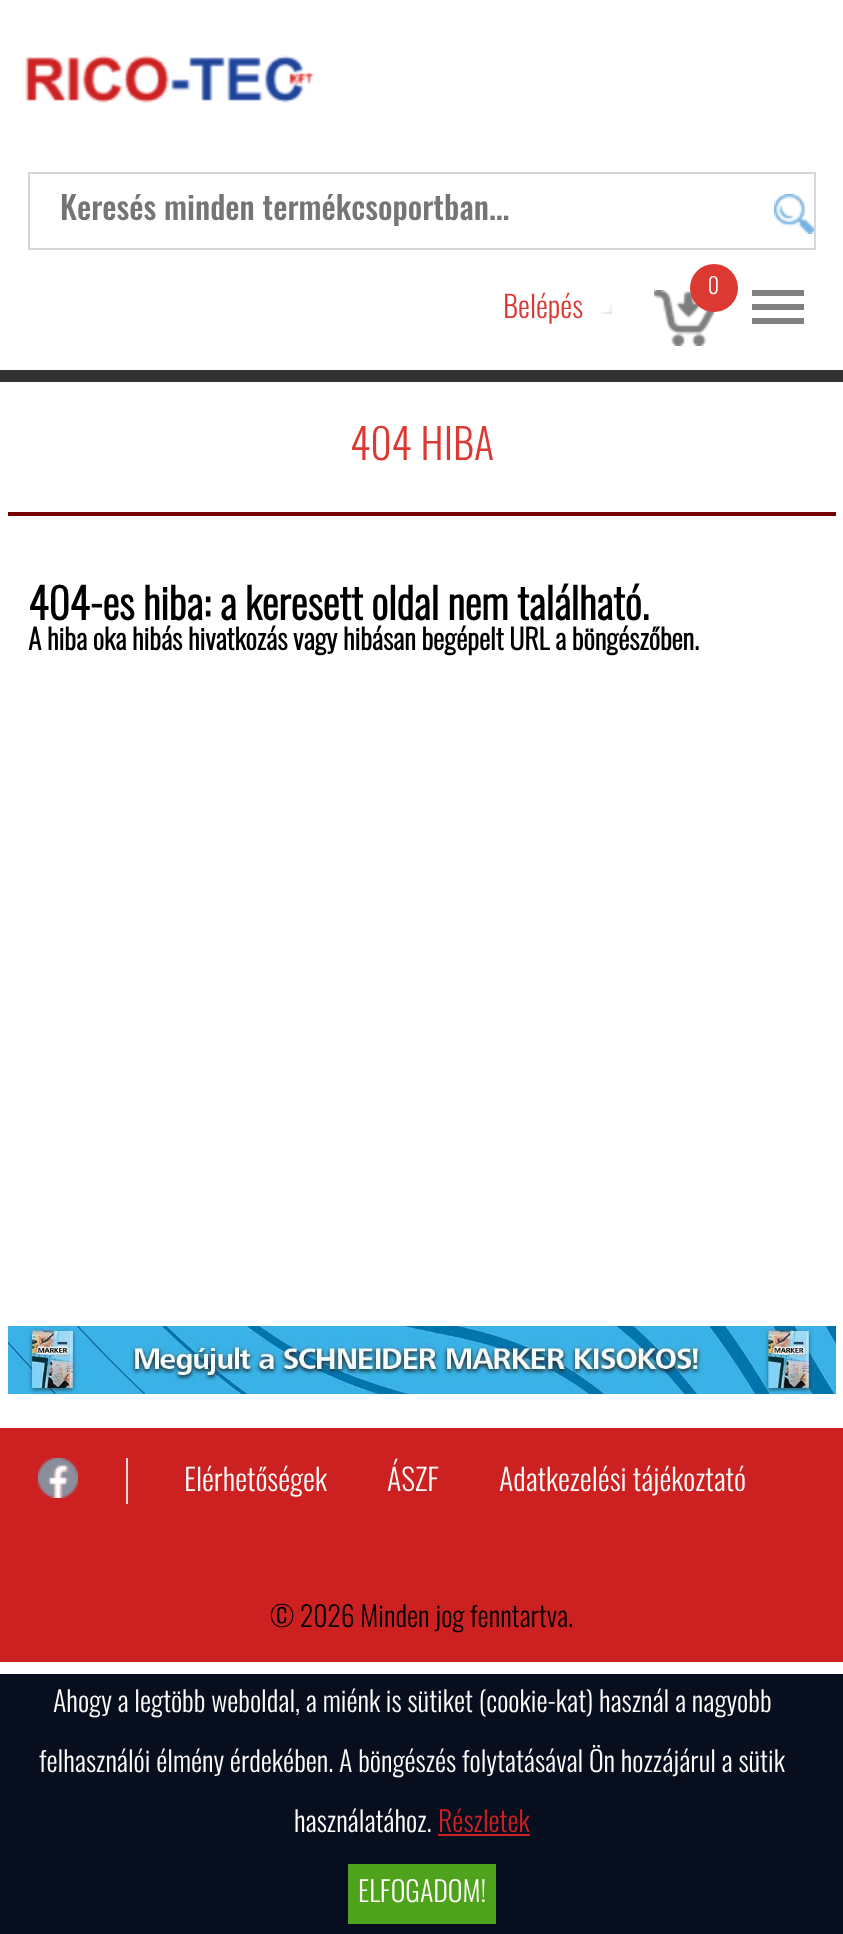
async function draw(canvas) {
	canvas.width = 843;
	canvas.height = 1934;
	const c = canvas.getContext('2d');
	c.miterLimit = 4;
	c.fontKerning = 'normal';
	async function loadImage(src) {
		const img = new Image();
		img.src = src;
		await img.decode();
		return img;
	}

	c.fillStyle = '#fff';
	c.fillRect(0, 0, 843, 1934);
	c.fillStyle = '#333';
	c.fillRect(0, 370, 843, 12);
	c.drawImage(await loadImage('img1.png'), 25, 55, 290, 48);
	c.strokeStyle = '#d7d7d7';
	c.lineWidth = 2;
	c.strokeRect(29, 173, 786, 76);
	c.save();
	c.beginPath();
	c.rect(60, 194, 682, 32);
	c.clip();
	c.font = '500 32px Oswald';
	c.fillStyle = '#757575';
	c.fillText('Keresés minden termékcsoportban...', 60, 220);
	c.restore();
	c.drawImage(await loadImage('img2.png'), 774, 194, 40, 40);
	c.drawImage(await loadImage('img3.png'), 654, 290, 60, 56);
	c.fillStyle = '#dc3932';
	c.beginPath();
	c.arc(714, 288, 24, 0, 2 * Math.PI);
	c.fill();
	c.font = '300 22px Oswald';
	c.fillStyle = '#fefbfb';
	c.fillText('0', 708, 294);
	c.font = '300 30px Oswald';
	c.fillStyle = '#dc3932';
	c.fillText('Belépés', 503, 318);
	c.drawImage(await loadImage('img4.png'), 599, 304, 13, 10);
	for (const [x, y, w, h, color] of [
		[752, 290, 52, 6, '#808080'],
		[752, 304, 52, 6, '#808080'],
		[752, 318, 52, 6, '#808080'],
		[8, 512, 828, 4, '#740000'],
	]) {
		c.fillStyle = color;
		c.fillRect(x, y, w, h);
	}
	c.font = '300 42px Oswald';
	c.fillStyle = '#dc3932';
	c.fillText('404 HIBA', 350, 460);
	c.font = 'bold 42px Oswald';
	c.fillStyle = '#000';
	c.fillText('404-es hiba: a keresett oldal nem található.', 28, 620);
	c.font = 'bold 28px Oswald';
	c.fillText('A hiba oka hibás hivatkozás vagy hibásan begépelt URL a böngészőben.', 28, 650);
	c.drawImage(await loadImage('img5.png'), 8, 1326, 828, 68);
	c.fillStyle = '#cd2121';
	c.fillRect(0, 1428, 843, 234);
	c.fillStyle = '#d7d7d7';
	c.fillRect(126, 1458, 2, 46);
	c.drawImage(await loadImage('img6.png'), 38, 1458, 40, 40);
	c.font = '300 30px Oswald';
	c.fillStyle = '#fefbfb';
	for (const [text, x, y] of [
		['Elérhetőségek', 184, 1491],
		['ÁSZF', 387, 1491],
		['Adatkezelési tájékoztató', 499, 1491],
	]) {
		c.fillText(text, x, y);
	}
	c.font = '300 28px Oswald';
	c.fillStyle = '#000';
	c.fillText('© 2026 Minden jog fenntartva.', 270, 1627);
	c.fillStyle = '#070e1d';
	c.fillRect(0, 1674, 843, 260);
	c.fillStyle = '#fefbfb';
	for (const [text, x, y] of [
		['Ahogy a legtöbb weboldal, a miénk is sütiket (cookie-kat) használ a nagyobb', 53, 1712],
		['felhasználói élmény érdekében. A böngészés folytatásával Ön hozzájárul a sütik', 39, 1772],
		['használatához.', 294, 1832],
	]) {
		c.fillText(text, x, y);
	}
	c.fillStyle = '#cd2121';
	c.fillText('Részletek', 438, 1832);
	c.fillRect(438, 1834, 92, 2);
	c.fillStyle = '#4fa31c';
	c.fillRect(348, 1864, 148, 60);
	c.fillStyle = '#fefbfb';
	c.fillText('ELFOGADOM!', 358, 1902);
}

draw(document.querySelector('canvas'));
